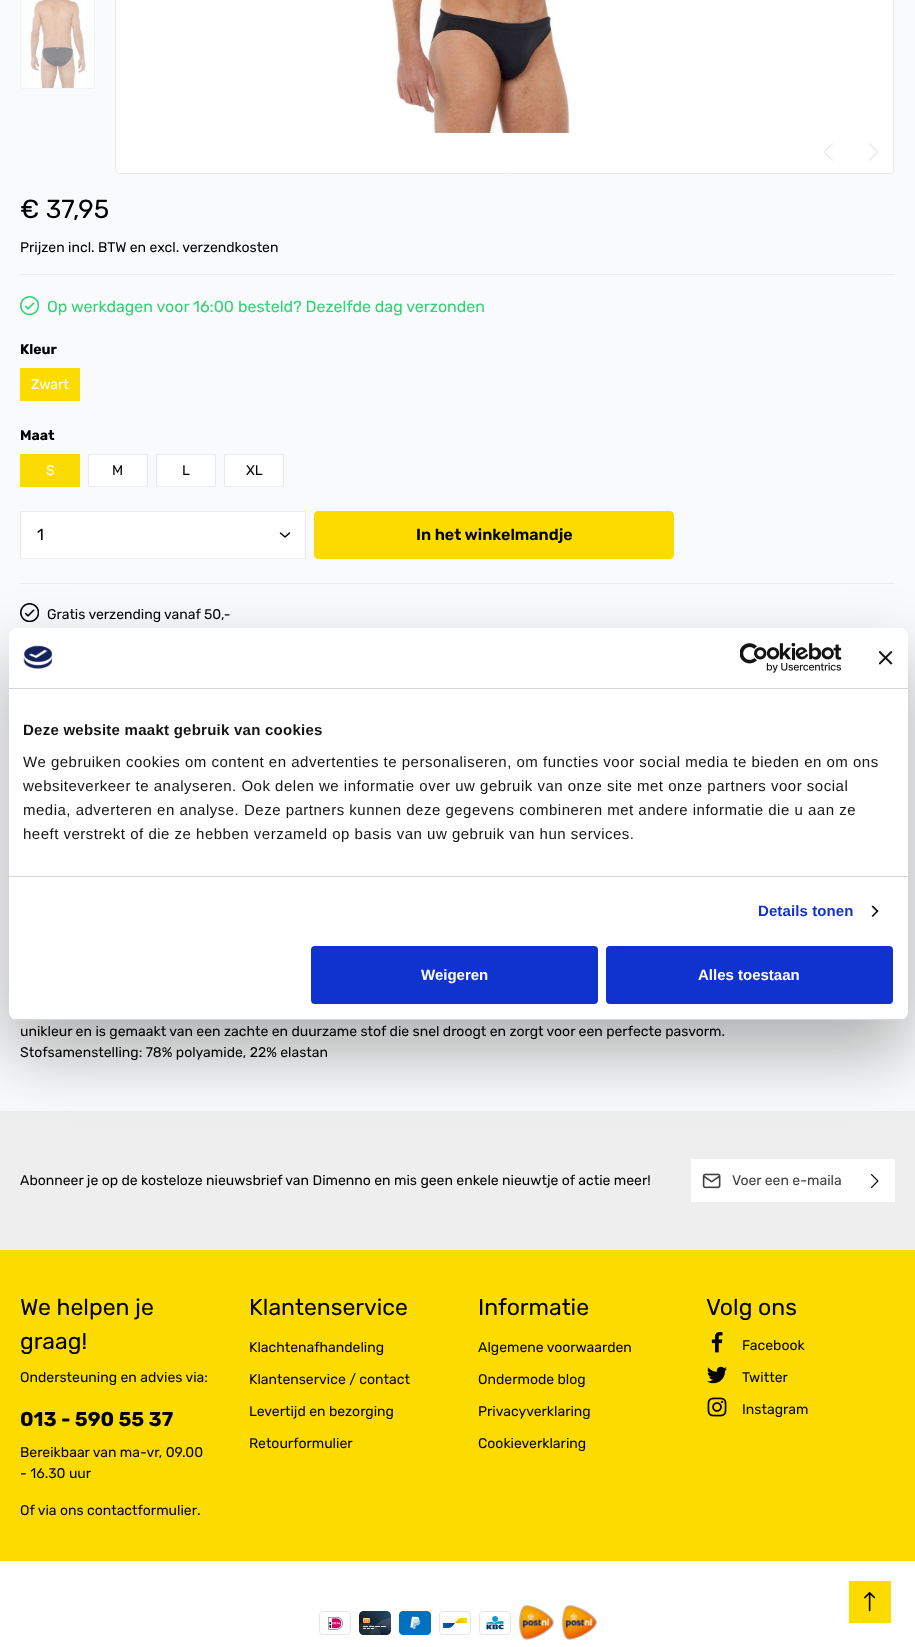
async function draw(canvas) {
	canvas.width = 915;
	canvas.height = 1647;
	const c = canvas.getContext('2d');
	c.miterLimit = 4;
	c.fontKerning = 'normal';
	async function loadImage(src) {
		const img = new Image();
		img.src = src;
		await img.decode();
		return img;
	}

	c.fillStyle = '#f9fafb';
	c.fillRect(0, 0, 915, 1647);
	c.fillStyle = '#fcfdfd';
	c.beginPath();
	c.roundRect(20.5, -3.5, 74, 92, 2.5);
	c.fill();
	c.strokeStyle = '#f2f3f3';
	c.stroke();
	c.drawImage(await loadImage('img1.png'), 30, 0, 56, 88);
	c.fillStyle = '#fff';
	c.beginPath();
	c.roundRect(115.5, -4.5, 778, 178, 3.5);
	c.fill();
	c.strokeStyle = '#ebebeb';
	c.stroke();
	c.drawImage(await loadImage('img2.png'), 391, 0, 180, 133);
	c.drawImage(await loadImage('img3.png'), 823, 143, 10, 18);
	c.drawImage(await loadImage('img4.png'), 869, 143, 10, 18);
	c.font = '26px Rubik';
	c.fillStyle = '#000';
	c.fillText('€ 37,95', 20, 218);
	c.font = '14px Rubik';
	c.fillText('Prijzen incl. BTW en excl. verzendkosten', 20, 252);
	c.fillStyle = '#ebebeb';
	c.fillRect(20, 274, 875, 1);
	c.drawImage(await loadImage('img5.png'), 20, 296, 19, 20);
	c.font = '16px Rubik';
	c.fillStyle = '#33d375';
	c.fillText('Op werkdagen voor 16:00 besteld? Dezelfde dag verzonden', 47, 312);
	c.font = 'bold 14px Rubik';
	c.fillStyle = '#000';
	c.fillText('Kleur', 20, 354);
	c.fillStyle = '#fcdc00';
	c.fillRect(20, 368, 60, 33);
	c.font = '14px Rubik';
	c.fillStyle = '#fff';
	c.fillText('Zwart', 31, 389);
	c.font = 'bold 14px Rubik';
	c.fillStyle = '#000';
	c.fillText('Maat', 20, 440);
	c.fillStyle = '#fcdc00';
	c.fillRect(20, 454, 60, 33);
	c.font = '14px Rubik';
	c.fillStyle = '#fff';
	c.fillText('S', 46, 475);
	c.beginPath();
	c.rect(88.5, 454.5, 59, 32);
	c.fill();
	c.stroke();
	c.fillStyle = '#000';
	c.fillText('M', 112, 475);
	c.fillStyle = '#fff';
	c.beginPath();
	c.rect(156.5, 454.5, 59, 32);
	c.fill();
	c.stroke();
	c.fillStyle = '#000';
	c.fillText('L', 182, 475);
	c.fillStyle = '#fff';
	c.beginPath();
	c.rect(224.5, 454.5, 59, 32);
	c.fill();
	c.stroke();
	c.fillStyle = '#000';
	c.fillText('XL', 246, 475);
	c.fillStyle = '#fff';
	c.fillRect(21, 512, 284, 46);
	c.beginPath();
	c.moveTo(280.5, 533);
	c.lineTo(285, 537);
	c.lineTo(289.5, 533);
	c.strokeStyle = '#000';
	c.lineWidth = 1.5;
	c.lineCap = 'round';
	c.lineJoin = 'round';
	c.stroke();
	c.strokeStyle = '#ebebeb';
	c.lineWidth = 1;
	c.lineJoin = 'miter';
	c.strokeRect(20.5, 511.5, 285, 47);
	c.font = '16px Rubik';
	c.fillStyle = '#000';
	c.fillText('1', 37, 540);
	c.fillStyle = '#fcdc00';
	c.beginPath();
	c.roundRect(314.5, 511.5, 359, 47, 3.5);
	c.fill();
	c.strokeStyle = '#fcdc00';
	c.stroke();
	c.font = '600 16px Rubik';
	c.fillStyle = '#000';
	c.fillText('In het winkelmandje', 416, 540);
	c.fillStyle = '#ebebeb';
	c.fillRect(20, 583, 875, 1);
	c.drawImage(await loadImage('img6.png'), 20, 603, 19, 19);
	c.font = '14px Rubik';
	c.fillStyle = '#000';
	for (const [text, x, y] of [
		['Gratis verzending vanaf 50,-', 47, 619],
		['unikleur en is gemaakt van een zachte en duurzame stof die snel droogt en zorgt voor een perfecte pasvorm.', 20, 1036],
		['Stofsamenstelling: 78% polyamide, 22% elastan', 20, 1057],
	]) {
		c.fillText(text, x, y);
	}
	c.fillStyle = '#fcdc00';
	c.fillRect(0, 1250, 915, 311);
	c.fillStyle = '#eee';
	c.fillRect(0, 1111, 915, 139);
	c.fillStyle = '#000';
	c.fillText('Abonneer je op de kosteloze nieuwsbrief van Dimenno en mis geen enkele nieuwtje of actie meer!', 20, 1185);
	c.fillStyle = '#fff';
	c.fillRect(691, 1159, 204, 43);
	c.drawImage(await loadImage('img7.png'), 702, 1173, 19, 16);
	c.fillStyle = '#404040';
	c.fillText('Voer een e-maila', 732, 1185);
	c.drawImage(await loadImage('img8.png'), 871, 1174, 8, 14);
	c.font = '23px Rubik';
	c.fillStyle = '#000';
	c.fillText('We helpen je', 20, 1315);
	c.fillText('graag!', 20, 1349);
	c.font = '14px Rubik';
	c.fillText('Ondersteuning en advies via:', 20, 1382);
	c.font = 'bold 20px Rubik';
	c.fillText('013 - 590 55 37', 20, 1426);
	c.font = '14px Rubik';
	for (const [text, x, y] of [
		['Bereikbaar van ma-vr, 09.00', 20, 1457],
		['- 16.30 uur', 20, 1478],
		['Of via ons contactformulier', 20, 1515],
		['.', 197, 1515],
	]) {
		c.fillText(text, x, y);
	}
	c.font = '23px Rubik';
	c.fillText('Klantenservice', 249, 1315);
	c.font = '14px Rubik';
	for (const [text, x, y] of [
		['Klachtenafhandeling', 249, 1352],
		['Klantenservice / contact', 249, 1384],
		['Levertijd en bezorging', 249, 1416],
		['Retourformulier', 249, 1448],
	]) {
		c.fillText(text, x, y);
	}
	c.font = '23px Rubik';
	c.fillText('Informatie', 478, 1315);
	c.font = '14px Rubik';
	for (const [text, x, y] of [
		['Algemene voorwaarden', 478, 1352],
		['Ondermode blog', 478, 1384],
		['Privacyverklaring', 478, 1416],
		['Cookieverklaring', 478, 1448],
	]) {
		c.fillText(text, x, y);
	}
	c.font = '23px Rubik';
	c.fillText('Volg ons', 706, 1315);
	c.drawImage(await loadImage('img9.png'), 711, 1332, 12, 21);
	c.font = '14px Rubik';
	c.fillText('Facebook', 742, 1350);
	c.drawImage(await loadImage('img10.png'), 707, 1366, 20, 18);
	c.fillText('Twitter', 742, 1382);
	c.drawImage(await loadImage('img11.png'), 707, 1397, 20, 20);
	c.fillText('Instagram', 742, 1414);
	c.fillStyle = '#fff';
	c.fillRect(0, 1561, 915, 86);
	c.drawImage(await loadImage('img12.png'), 319, 1611, 32, 24);
	c.drawImage(await loadImage('img13.png'), 359, 1611, 32, 24);
	c.drawImage(await loadImage('img14.png'), 399, 1611, 32, 24);
	c.drawImage(await loadImage('img15.png'), 439, 1611, 32, 24);
	c.drawImage(await loadImage('img16.png'), 479, 1611, 32, 24);
	c.drawImage(await loadImage('img17.png'), 519, 1605, 35, 35);
	c.drawImage(await loadImage('img18.png'), 562, 1605, 35, 35);
	c.fillStyle = '#0000004d';
	c.filter = 'blur(34px)';
	c.beginPath();
	c.roundRect(9, 660, 899, 392, 8);
	c.fill();
	c.filter = 'none';
	c.fillStyle = '#fff';
	c.beginPath();
	c.roundRect(9, 628, 899, 392, 8);
	c.fill();
	c.fillStyle = '#d6d6d6';
	c.fillRect(9, 688, 899, 1);
	c.drawImage(await loadImage('img19.png'), 23, 645, 30, 24);
	c.drawImage(await loadImage('img20.png'), 740, 643, 102, 30);
	c.drawImage(await loadImage('img21.png'), 879, 651, 14, 14);
	c.fillRect(9, 876, 899, 1);
	c.letterSpacing = '0.25px';
	c.font = 'bold 15px Liberation Sans';
	c.fillStyle = '#141414';
	c.fillText('Deze website maakt gebruik van cookies', 23, 735);
	c.letterSpacing = '0.5px';
	c.font = '15px Liberation Sans';
	for (const [text, x, y] of [
		['We gebruiken cookies om content en advertenties te personaliseren, om functies voor social media te bieden en om ons', 23, 767],
		['websiteverkeer te analyseren. Ook delen we informatie over uw gebruik van onze site met onze partners voor social', 23, 791],
		['media, adverteren en analyse. Deze partners kunnen deze gegevens combineren met andere informatie die u aan ze', 23, 815],
		['heeft verstrekt of die ze hebben verzameld op basis van uw gebruik van hun services.', 23, 839],
	]) {
		c.fillText(text, x, y);
	}
	c.letterSpacing = '0.1px';
	c.font = 'bold 15px Liberation Sans';
	c.fillStyle = '#1032cf';
	c.fillText('Details tonen', 758, 916);
	c.fillStyle = '#141414';
	c.beginPath();
	c.moveTo(873, 905.5);
	c.lineTo(878.5, 911);
	c.lineTo(877.5, 912.5);
	c.lineTo(871.5, 906.5);
	c.closePath();
	c.fill();
	c.beginPath();
	c.moveTo(877.5, 910);
	c.lineTo(878.5, 911);
	c.lineTo(873, 917);
	c.lineTo(871.5, 916);
	c.closePath();
	c.fill();
	c.save();
	c.beginPath();
	c.roundRect(9, 628, 899, 392, 8);
	c.clip();
	c.fillStyle = '#d6d6d6';
	c.fillRect(9, 1019, 899, 1);
	c.restore();
	c.fillStyle = '#1032cf';
	c.beginPath();
	c.roundRect(312, 947, 285, 56, 3);
	c.fill();
	c.strokeStyle = '#1032cf';
	c.lineWidth = 2;
	c.stroke();
	c.letterSpacing = '0px';
	c.fillStyle = '#fff';
	c.fillText('Weigeren', 421, 980);
	c.fillStyle = '#1032cf';
	c.beginPath();
	c.roundRect(607, 947, 285, 56, 3);
	c.fill();
	c.stroke();
	c.fillStyle = '#fff';
	c.fillText('Alles toestaan', 698, 980);
	c.fillStyle = '#fcdc00';
	c.fillRect(849, 1581, 42, 42);
	c.drawImage(await loadImage('img22.png'), 864, 1592, 12, 20);
}

draw(document.querySelector('canvas'));
